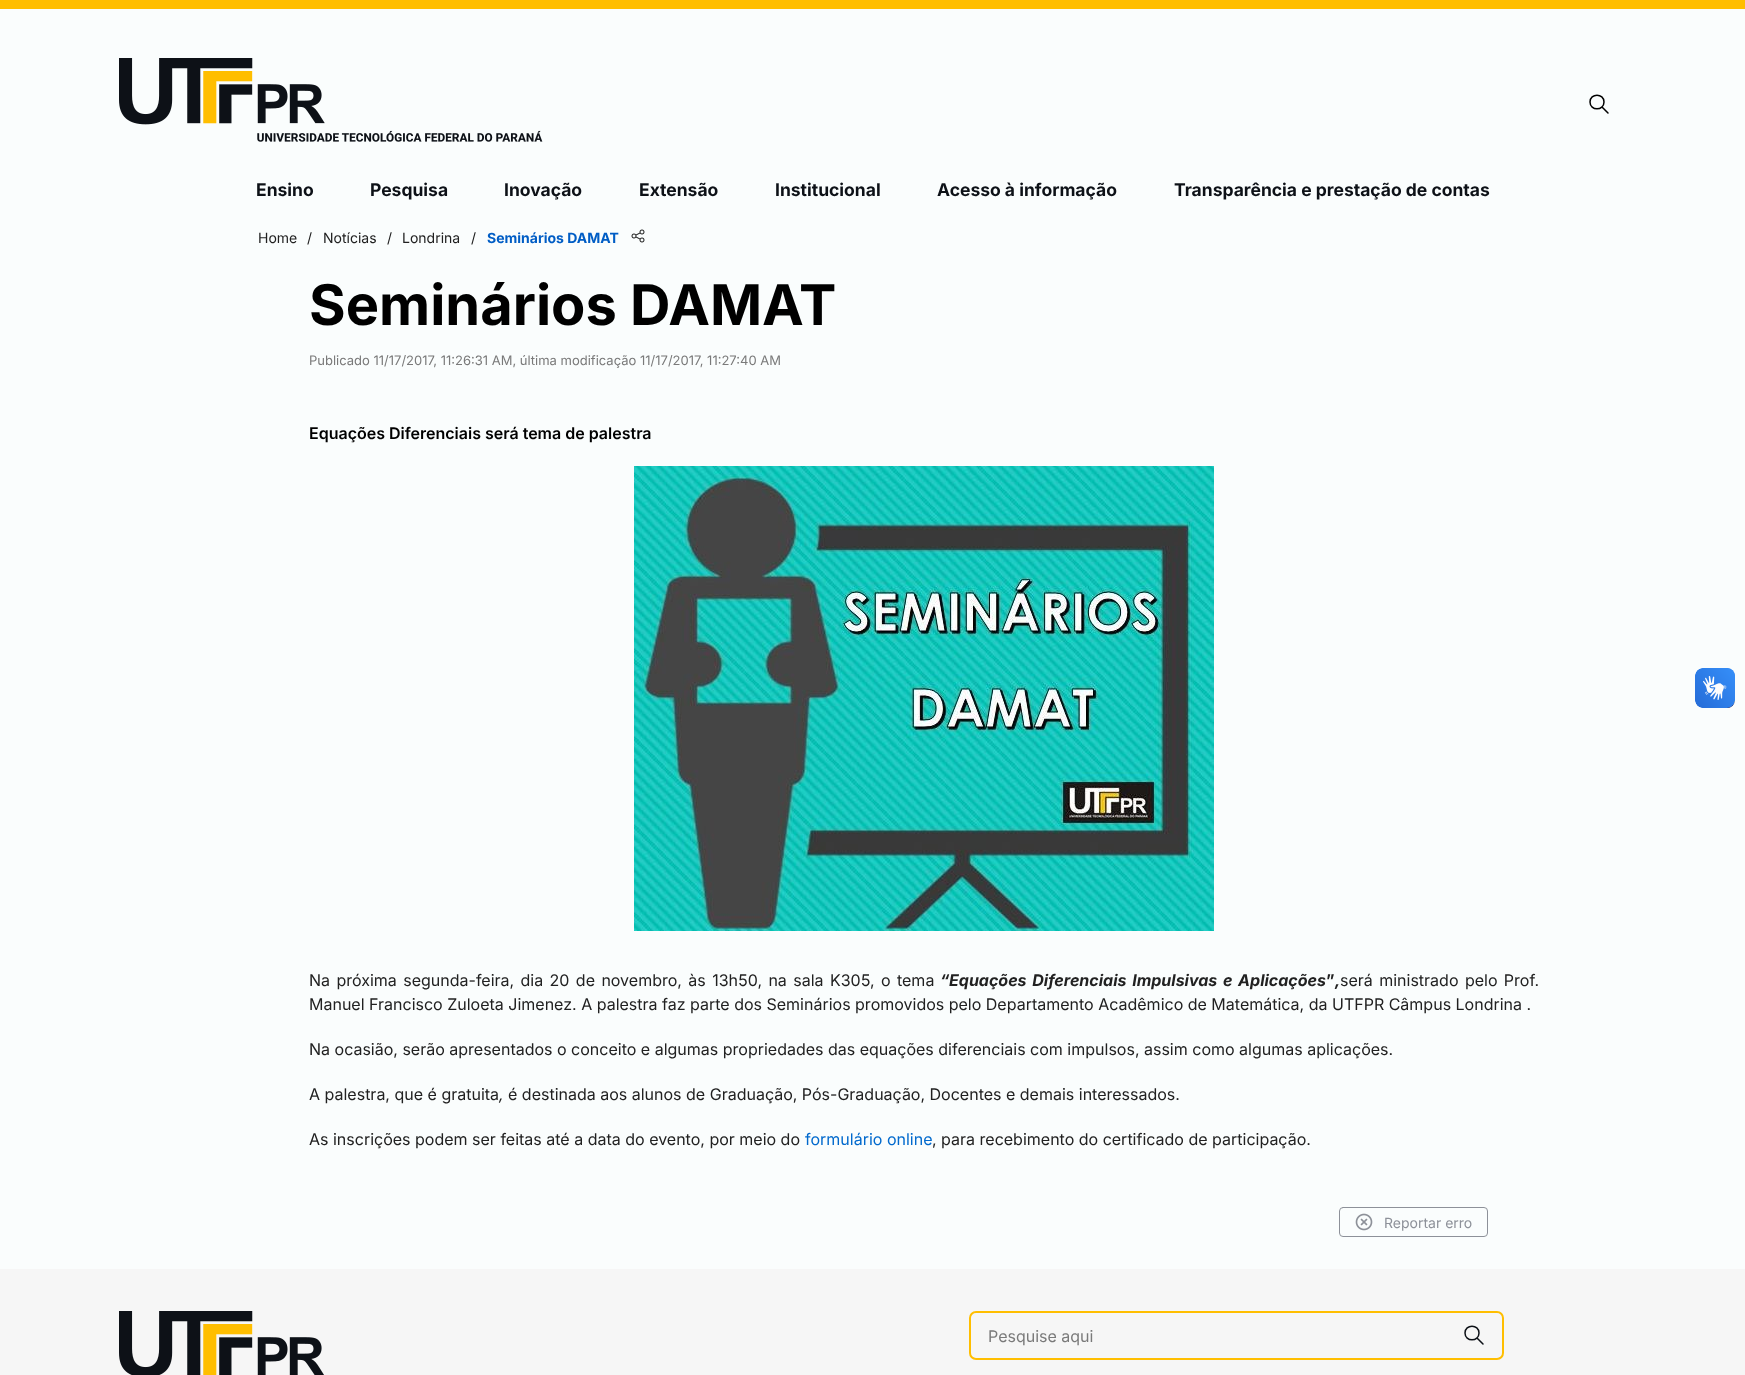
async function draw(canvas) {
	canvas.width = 1745;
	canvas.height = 1375;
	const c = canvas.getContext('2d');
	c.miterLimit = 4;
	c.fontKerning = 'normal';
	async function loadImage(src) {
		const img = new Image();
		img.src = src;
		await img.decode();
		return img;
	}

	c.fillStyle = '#fafdfd';
	c.fillRect(0, 0, 1745, 1375);
	c.fillStyle = '#ffbe00';
	c.fillRect(0, 0, 1745, 9);
	c.drawImage(await loadImage('img1.png'), 119, 58, 424, 84);
	c.beginPath();
	c.moveTo(1608, 113);
	c.lineTo(1602, 107);
	c.moveTo(1590, 102);
	c.bezierCurveTo(1590, 111, 1604, 111, 1604, 102);
	c.bezierCurveTo(1604, 93, 1590, 93, 1590, 102);
	c.closePath();
	c.strokeStyle = '#000';
	c.lineWidth = 1.5;
	c.lineCap = 'round';
	c.lineJoin = 'round';
	c.stroke();
	c.font = 'bold 17.5px Inter';
	c.fillStyle = '#0d1117';
	for (const [text, x, y] of [
		['Ensino', 256, 196],
		['Pesquisa', 370, 196],
		['Inovação', 504, 196],
		['Extensão', 639, 196],
		['Institucional', 775, 196],
		['Acesso à informação', 937, 196],
		['Transparência e prestação de contas', 1174, 196],
	]) {
		c.fillText(text, x, y);
	}
	c.font = '14px Inter';
	c.fillStyle = '#212121';
	for (const [text, x, y] of [
		['Home', 258, 243],
		['/', 307, 243],
		['Notícias', 323, 243],
		['/', 387, 243],
		['Londrina', 402, 243],
		['/', 471, 243],
	]) {
		c.fillText(text, x, y);
	}
	c.font = 'bold 14px Inter';
	c.fillStyle = '#005dc5';
	c.fillText('Seminários DAMAT', 487, 243);
	c.drawImage(await loadImage('img2.png'), 631, 229, 14, 14);
	c.font = 'bold 56px Inter';
	c.fillStyle = '#000';
	c.fillText('Seminários DAMAT', 309, 325);
	c.font = '13px Inter';
	c.fillStyle = '#7a7a7a';
	c.fillText('Publicado 11/17/2017, 11:26:31 AM, última modificação 11/17/2017, 11:27:40 AM', 309, 365);
	c.font = '600 16px Inter';
	c.fillStyle = '#000';
	c.fillText('Equações Diferenciais será tema de palestra', 309, 439);
	c.drawImage(await loadImage('img3.png'), 634, 466, 580, 465);
	c.wordSpacing = '1.9px';
	c.font = '16px Inter';
	c.fillStyle = '#212121';
	c.fillText('Na próxima segunda-feira, dia 20 de novembro, às 13h50, na sala K305, o tema', 309, 986);
	c.wordSpacing = '0px';
	c.font = 'italic bold 16px Inter';
	c.fillText('“', 940, 986);
	c.wordSpacing = '1.9px';
	c.fillText('Equações Diferenciais Impulsivas e Aplicações', 949, 986);
	c.wordSpacing = '0px';
	c.font = 'bold 16px Inter';
	c.fillText('”', 1326, 986);
	c.wordSpacing = '1.9px';
	c.font = '16px Inter';
	c.fillText('será ministrado pelo Prof.', 1340, 986);
	c.wordSpacing = '0px';
	c.font = 'italic bold 16px Inter';
	c.fillText(',', 1335, 986);
	c.font = '16px Inter';
	for (const [text, x, y] of [
		['Manuel Francisco Zuloeta Jimenez. A palestra faz parte dos Seminários promovidos pelo Departamento Acadêmico de Matemática, da UTFPR Câmpus Londrina .', 309, 1010],
		['Na ocasião, serão apresentados o conceito e algumas propriedades das equações diferenciais com impulsos, assim como algumas aplicações.', 309, 1055],
		['A palestra, que é gratuita', 309, 1100],
	]) {
		c.fillText(text, x, y);
	}
	c.font = 'italic 16px Inter';
	c.fillText(',', 499, 1100);
	c.font = '16px Inter';
	c.fillText('é destinada aos alunos de Graduação, Pós-Graduação, Docentes e demais interessados.', 508, 1100);
	c.fillText('As inscrições podem ser feitas até a data do evento, por meio do', 309, 1145);
	c.fillStyle = '#0169cd';
	c.fillText('formulário online', 805, 1145);
	c.fillStyle = '#212121';
	c.fillText(', para recebimento do certificado de participação.', 932, 1145);
	c.beginPath();
	c.roundRect(1339.5, 1207.5, 148, 29, 3.5);
	c.strokeStyle = '#8d9199';
	c.lineWidth = 1;
	c.lineJoin = 'miter';
	c.stroke();
	c.drawImage(await loadImage('img4.png'), 1355, 1213, 18, 18);
	c.font = '14px Inter';
	c.fillStyle = '#8d9199';
	c.fillText('Reportar erro', 1384, 1228);
	c.fillStyle = '#f6f6f6';
	c.fillRect(0, 1269, 1745, 106);
	c.drawImage(await loadImage('img5.png'), 119, 1311, 205, 64);
	c.beginPath();
	c.roundRect(970, 1312, 533, 47, 6);
	c.strokeStyle = '#ffbe00';
	c.lineWidth = 2;
	c.stroke();
	c.font = '16px Inter';
	c.fillStyle = '#7a7a7a';
	c.fillText('Pesquise aqui', 988, 1342);
	c.beginPath();
	c.moveTo(1483, 1344);
	c.lineTo(1477, 1338);
	c.moveTo(1465, 1333);
	c.bezierCurveTo(1465, 1342, 1479, 1342, 1479, 1333);
	c.bezierCurveTo(1479, 1324, 1465, 1324, 1465, 1333);
	c.closePath();
	c.strokeStyle = '#0d1117';
	c.lineWidth = 1.5;
	c.lineJoin = 'round';
	c.stroke();
	c.drawImage(await loadImage('img6.png'), 1695, 668, 40, 40);
	c.drawImage(await loadImage('img7.png'), 1695, 668, 40, 40);
}

draw(document.querySelector('canvas'));
